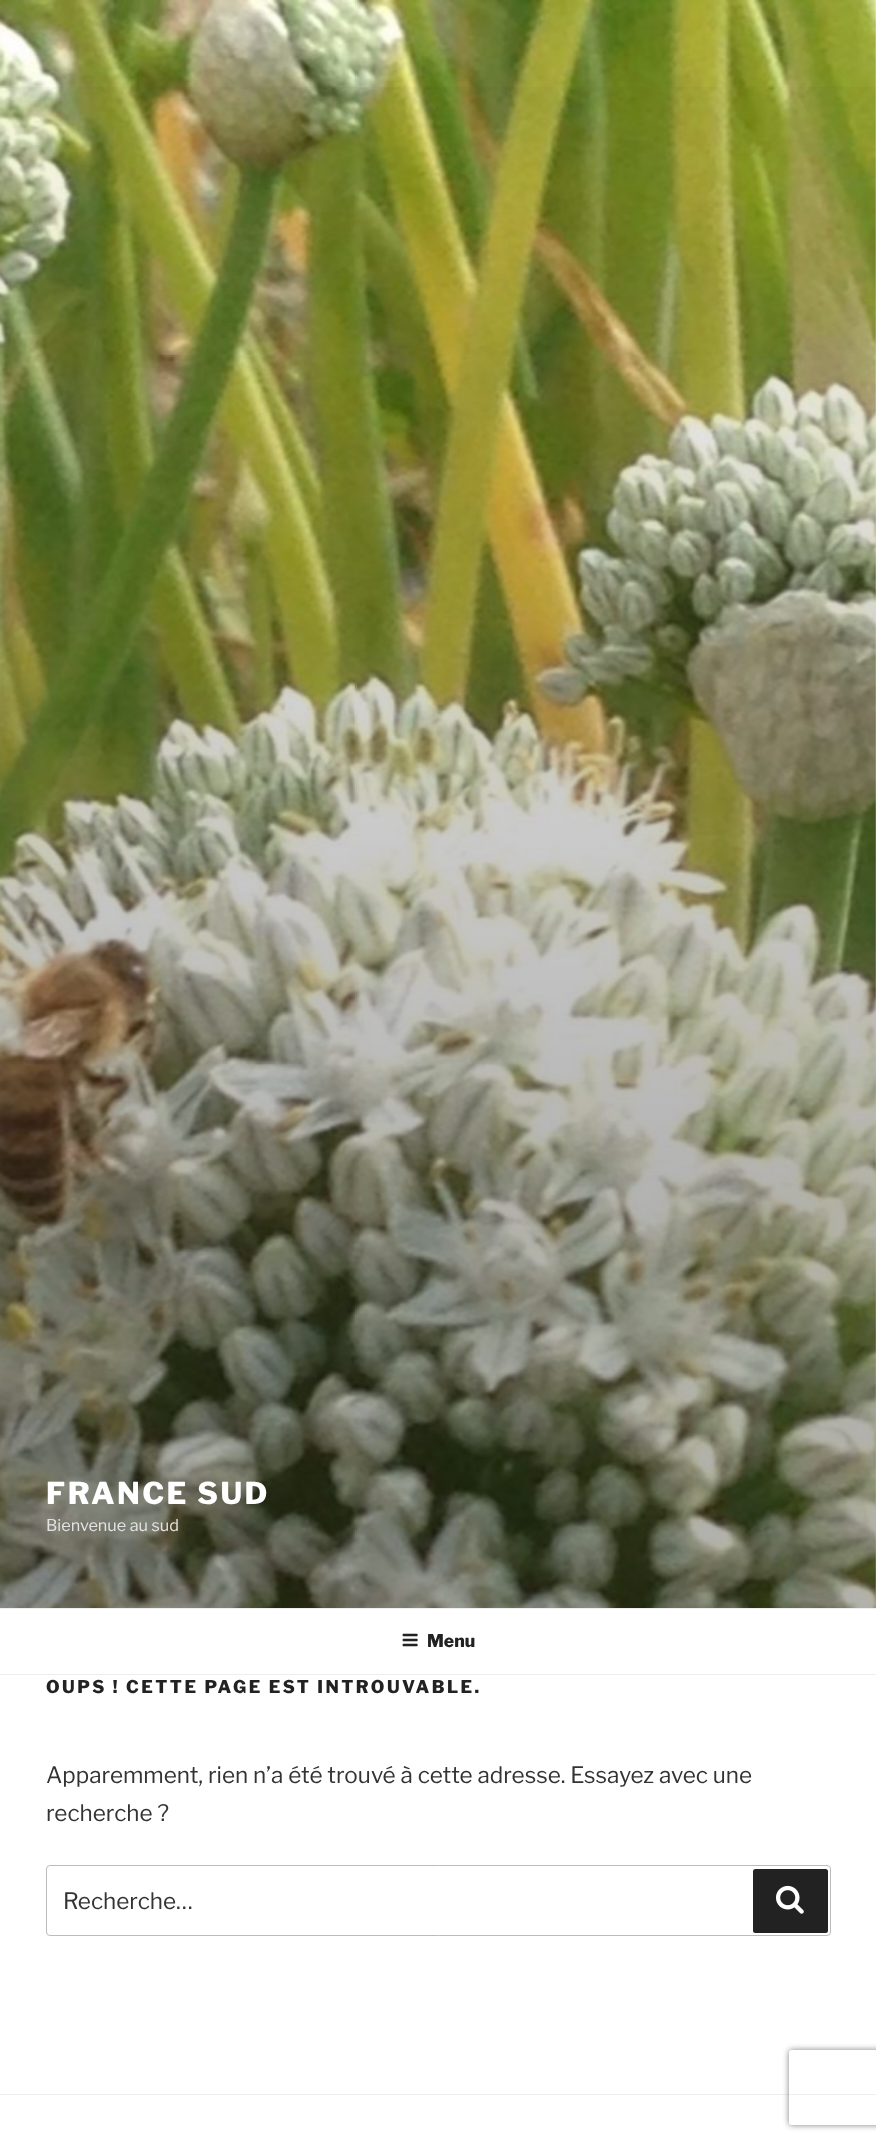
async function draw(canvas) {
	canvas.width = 876;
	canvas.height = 2142;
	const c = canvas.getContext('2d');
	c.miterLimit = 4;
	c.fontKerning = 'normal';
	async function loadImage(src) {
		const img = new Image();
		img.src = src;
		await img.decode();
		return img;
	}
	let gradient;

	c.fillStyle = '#fff';
	c.fillRect(0, 0, 876, 2142);
	c.drawImage(await loadImage('img1.png'), 0, 0, 876, 1608);
	gradient = c.createLinearGradient(438, 0, 438, 1608);
	gradient.addColorStop(0, '#00000000');
	gradient.addColorStop(0.75, '#0000004d');
	gradient.addColorStop(1, '#0000004d');
	c.fillStyle = gradient;
	c.fillRect(0, 87, 876, 1521);
	c.letterSpacing = '2.4px';
	c.font = '100 30px Libre Franklin';
	c.fillStyle = '#fff';
	c.fillText('FRANCE SUD', 46, 1504);
	c.letterSpacing = '0px';
	c.font = '100 16.25px "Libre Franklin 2"';
	c.fillStyle = '#e3e3e1';
	c.fillText('Bienvenue au sud', 46, 1531);
	c.fillStyle = '#eee';
	c.fillRect(0, 1608, 876, 1);
	c.fillRect(0, 1674, 876, 1);
	c.drawImage(await loadImage('img2.png'), 402, 1633, 16, 14);
	c.font = '100 17.5px Libre Franklin';
	c.fillStyle = '#222';
	c.fillText('Menu', 427, 1647);
	c.letterSpacing = '2.45px';
	c.fillText('OUPS ! CETTE PAGE EST INTROUVABLE.', 46, 1693);
	c.letterSpacing = '0px';
	c.font = '100 22.5px "Libre Franklin 2"';
	c.fillStyle = '#333';
	c.fillText('Apparemment, rien n’a été trouvé à cette adresse. Essayez avec une', 46, 1783);
	c.fillText('recherche ?', 46, 1821);
	c.beginPath();
	c.roundRect(46.5, 1865.5, 784, 70, 3.5);
	c.strokeStyle = '#bbb';
	c.stroke();
	c.fillText('Recherche…', 63, 1909);
	c.fillStyle = '#222';
	c.beginPath();
	c.roundRect(753, 1869, 75, 64, 2.5);
	c.fill();
	c.drawImage(await loadImage('img3.png'), 775, 1885, 29, 29);
	c.fillStyle = '#eee';
	c.fillRect(0, 2094, 876, 1);
	c.save();
	c.beginPath();
	c.moveTo(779, 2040);
	c.lineTo(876, 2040);
	c.lineTo(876, 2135);
	c.lineTo(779, 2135);
	c.closePath();
	c.moveTo(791.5, 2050);
	c.lineTo(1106.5, 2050);
	c.bezierCurveTo(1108, 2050, 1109, 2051, 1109, 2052.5);
	c.lineTo(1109, 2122.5);
	c.bezierCurveTo(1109, 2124, 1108, 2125, 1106.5, 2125);
	c.lineTo(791.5, 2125);
	c.bezierCurveTo(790, 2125, 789, 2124, 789, 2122.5);
	c.lineTo(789, 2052.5);
	c.bezierCurveTo(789, 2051, 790, 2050, 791.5, 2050);
	c.closePath();
	c.clip('evenodd');
	c.fillStyle = '#808080';
	c.filter = 'blur(3px)';
	c.beginPath();
	c.roundRect(789, 2050, 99, 75, 2.5);
	c.fill();
	c.filter = 'none';
	c.restore();
}

draw(document.querySelector('canvas'));
